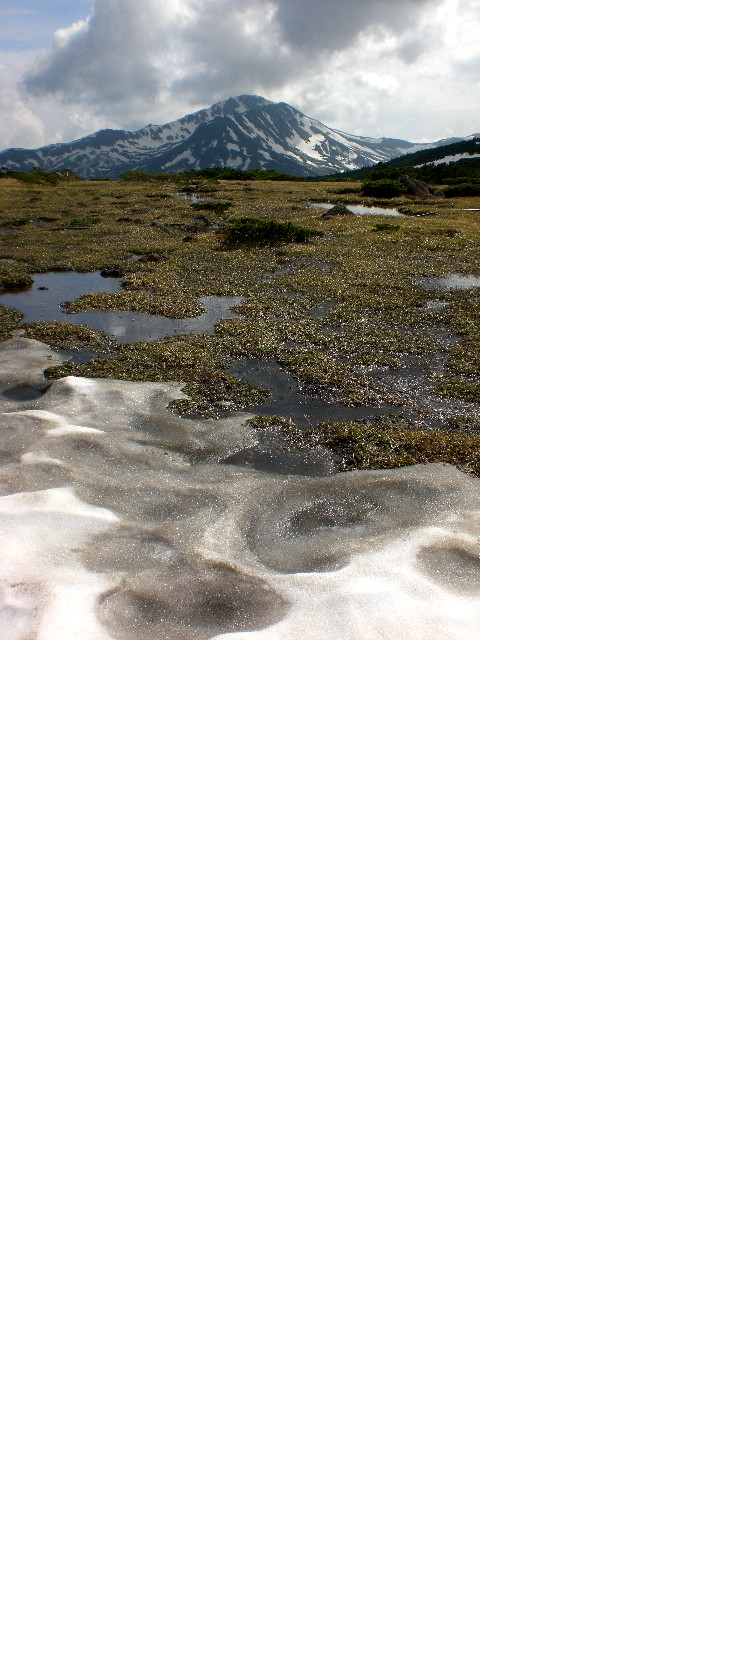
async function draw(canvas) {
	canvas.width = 745;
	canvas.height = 1680;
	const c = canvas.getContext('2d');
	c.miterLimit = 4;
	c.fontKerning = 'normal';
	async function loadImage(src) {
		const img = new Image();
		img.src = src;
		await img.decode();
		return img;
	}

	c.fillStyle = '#fff';
	c.fillRect(0, 0, 745, 1680);
	c.drawImage(await loadImage('img1.png'), 0, 0, 480, 640);
}

draw(document.querySelector('canvas'));
